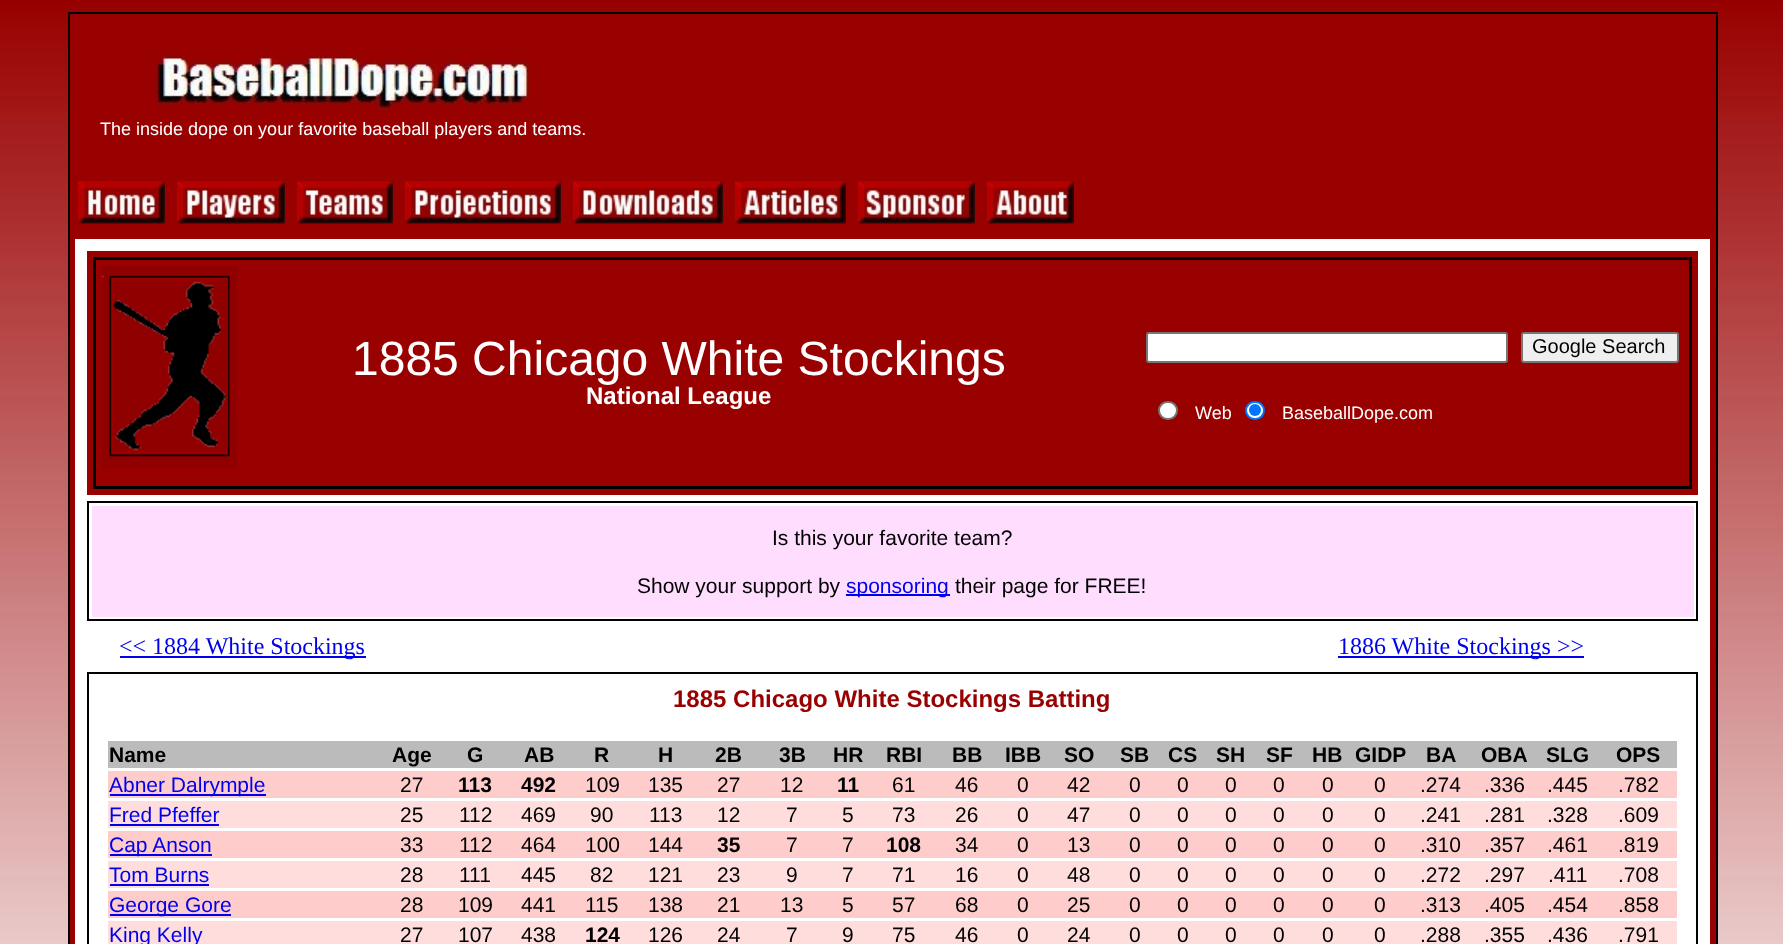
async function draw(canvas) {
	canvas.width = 1783;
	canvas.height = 944;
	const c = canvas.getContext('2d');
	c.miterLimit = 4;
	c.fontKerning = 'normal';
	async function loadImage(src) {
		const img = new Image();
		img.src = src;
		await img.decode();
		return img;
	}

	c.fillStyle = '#fff';
	c.fillRect(0, 0, 1783, 944);
	c.drawImage(await loadImage('img1.png'), 0, 0, 1783, 944);
	c.fillStyle = '#900';
	c.beginPath();
	c.rect(69, 13, 1648, 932);
	c.fill();
	c.strokeStyle = '#000';
	c.lineWidth = 2;
	c.stroke();
	c.drawImage(await loadImage('img2.png'), 156, 54, 375, 57);
	c.font = '18px Liberation Sans';
	c.fillStyle = '#fff';
	c.fillText('The inside dope on your favorite baseball players and teams.', 100, 135);
	c.drawImage(await loadImage('img3.png'), 78, 181, 87, 43);
	c.drawImage(await loadImage('img4.png'), 177, 181, 108, 43);
	c.drawImage(await loadImage('img5.png'), 297, 181, 96, 43);
	c.drawImage(await loadImage('img6.png'), 405, 181, 156, 43);
	c.drawImage(await loadImage('img7.png'), 573, 181, 150, 43);
	c.drawImage(await loadImage('img8.png'), 735, 181, 111, 43);
	c.drawImage(await loadImage('img9.png'), 858, 181, 117, 43);
	c.drawImage(await loadImage('img10.png'), 987, 181, 87, 43);
	c.fillRect(75, 239, 1635, 705);
	c.fillStyle = '#900';
	c.fillRect(87, 251, 1611, 244);
	c.lineWidth = 3;
	c.strokeRect(94.5, 258.5, 1596, 229);
	c.drawImage(await loadImage('img11.png'), 102, 265, 135, 203);
	c.font = '48px Liberation Sans';
	c.fillStyle = '#fff';
	c.fillText('1885 Chicago White Stockings', 352, 375);
	c.font = 'bold 24px Liberation Sans';
	c.fillText('National League', 586, 404);
	c.beginPath();
	c.roundRect(1147, 333, 360, 29, 2);
	c.fill();
	c.strokeStyle = '#767676';
	c.lineWidth = 2;
	c.stroke();
	c.fillStyle = '#efefef';
	c.beginPath();
	c.roundRect(1522, 333, 156, 29, 2);
	c.fill();
	c.stroke();
	c.font = '20px Liberation Sans';
	c.fillStyle = '#000';
	c.fillText('Google Search', 1532, 353);
	c.fillStyle = '#fff';
	c.beginPath();
	c.roundRect(1159, 402, 18, 17, 8.5);
	c.fill();
	c.stroke();
	c.font = '18px Liberation Sans';
	c.fillText('Web', 1195, 419);
	c.beginPath();
	c.roundRect(1246, 402, 18, 17, 8.5);
	c.fill();
	c.strokeStyle = '#0075ff';
	c.stroke();
	c.fillStyle = '#0075ff';
	c.beginPath();
	c.arc(1255, 410, 6, 0, 2 * Math.PI);
	c.fill();
	c.fillStyle = '#fff';
	c.fillText('BaseballDope.com', 1282, 419);
	c.strokeStyle = '#000';
	c.strokeRect(88, 502, 1609, 118);
	c.fillStyle = '#fdf';
	c.fillRect(92, 506, 1602, 111);
	c.font = '21px Liberation Sans';
	c.fillStyle = '#000';
	c.fillText('Is this your favorite team?', 772, 545);
	c.fillText('Show your support by', 637, 593);
	c.fillStyle = '#00e';
	c.fillRect(846, 594, 104, 2);
	c.fillText('sponsoring', 846, 593);
	c.fillStyle = '#000';
	c.fillText('their page for FREE!', 955, 593);
	c.fillStyle = '#00e';
	c.fillRect(120, 656, 246, 2);
	c.font = '24px Liberation Serif';
	c.fillText('<< 1884 White Stockings', 119, 654);
	c.fillRect(1338, 656, 246, 2);
	c.fillText('1886 White Stockings >>', 1338, 654);
	c.strokeRect(88, 673, 1609, 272);
	c.font = 'bold 24px Liberation Sans';
	c.fillStyle = '#900';
	c.fillText('1885 Chicago White Stockings Batting', 673, 707);
	c.fillStyle = '#bbb';
	c.fillRect(108, 741, 1569, 27);
	c.font = 'bold 21px Liberation Sans';
	c.fillStyle = '#000';
	for (const [text, x, y] of [
		['Name', 109, 762],
		['Age', 392, 762],
		['G', 467, 762],
		['AB', 524, 762],
		['R', 594, 762],
		['H', 658, 762],
		['2B', 715, 762],
		['3B', 779, 762],
		['HR', 833, 762],
		['RBI', 886, 762],
		['BB', 952, 762],
		['IBB', 1005, 762],
		['SO', 1064, 762],
		['SB', 1120, 762],
		['CS', 1168, 762],
		['SH', 1216, 762],
		['SF', 1266, 762],
		['HB', 1312, 762],
		['GIDP', 1355, 762],
		['BA', 1426, 762],
		['OBA', 1481, 762],
		['SLG', 1546, 762],
		['OPS', 1616, 762],
	]) {
		c.fillText(text, x, y);
	}
	c.fillStyle = '#fcc';
	c.fillRect(108, 771, 1569, 27);
	c.fillStyle = '#00e';
	c.fillRect(110, 794, 156, 2);
	c.font = '21px Liberation Sans';
	c.fillText('Abner Dalrymple', 109, 792);
	c.fillStyle = '#000';
	c.fillText('27', 400, 792);
	c.font = 'bold 21px Liberation Sans';
	c.fillText('113', 458, 792);
	c.fillText('492', 521, 792);
	c.font = '21px Liberation Sans';
	for (const [text, x, y] of [
		['109', 585, 792],
		['135', 648, 792],
		['27', 717, 792],
		['12', 780, 792],
	]) {
		c.fillText(text, x, y);
	}
	c.font = 'bold 21px Liberation Sans';
	c.fillText('11', 837, 792);
	c.font = '21px Liberation Sans';
	for (const [text, x, y] of [
		['61', 892, 792],
		['46', 955, 792],
		['0', 1017, 792],
		['42', 1067, 792],
		['0', 1129, 792],
		['0', 1177, 792],
		['0', 1225, 792],
		['0', 1273, 792],
		['0', 1322, 792],
		['0', 1374, 792],
		['.274', 1420, 792],
		['.336', 1484, 792],
		['.445', 1547, 792],
		['.782', 1618, 792],
	]) {
		c.fillText(text, x, y);
	}
	c.fillStyle = '#fdd';
	c.fillRect(108, 801, 1569, 27);
	c.fillStyle = '#00e';
	c.fillText('Fred Pfeffer', 109, 822);
	c.fillRect(110, 824, 109, 2);
	c.fillStyle = '#000';
	for (const [text, x, y] of [
		['25', 400, 822],
		['112', 459, 822],
		['469', 521, 822],
		['90', 590, 822],
		['113', 649, 822],
		['12', 717, 822],
		['7', 786, 822],
		['5', 842, 822],
		['73', 892, 822],
		['26', 955, 822],
		['0', 1017, 822],
		['47', 1067, 822],
		['0', 1129, 822],
		['0', 1177, 822],
		['0', 1225, 822],
		['0', 1273, 822],
		['0', 1322, 822],
		['0', 1374, 822],
		['.241', 1420, 822],
		['.281', 1484, 822],
		['.328', 1547, 822],
		['.609', 1618, 822],
	]) {
		c.fillText(text, x, y);
	}
	c.fillStyle = '#fcc';
	c.fillRect(108, 831, 1569, 27);
	c.fillStyle = '#00e';
	c.fillRect(110, 854, 102, 2);
	c.fillText('Cap Anson', 109, 852);
	c.fillStyle = '#000';
	for (const [text, x, y] of [
		['33', 400, 852],
		['112', 459, 852],
		['464', 521, 852],
		['100', 585, 852],
		['144', 648, 852],
	]) {
		c.fillText(text, x, y);
	}
	c.font = 'bold 21px Liberation Sans';
	c.fillText('35', 717, 852);
	c.font = '21px Liberation Sans';
	c.fillText('7', 786, 852);
	c.fillText('7', 842, 852);
	c.font = 'bold 21px Liberation Sans';
	c.fillText('108', 886, 852);
	c.font = '21px Liberation Sans';
	for (const [text, x, y] of [
		['34', 955, 852],
		['0', 1017, 852],
		['13', 1067, 852],
		['0', 1129, 852],
		['0', 1177, 852],
		['0', 1225, 852],
		['0', 1273, 852],
		['0', 1322, 852],
		['0', 1374, 852],
		['.310', 1420, 852],
		['.357', 1484, 852],
		['.461', 1547, 852],
		['.819', 1618, 852],
	]) {
		c.fillText(text, x, y);
	}
	c.fillStyle = '#fdd';
	c.fillRect(108, 861, 1569, 27);
	c.fillStyle = '#00e';
	c.fillText('Tom Burns', 109, 882);
	c.fillRect(110, 884, 99, 2);
	c.fillStyle = '#000';
	for (const [text, x, y] of [
		['28', 400, 882],
		['111', 459, 882],
		['445', 521, 882],
		['82', 590, 882],
		['121', 648, 882],
		['23', 717, 882],
		['9', 786, 882],
		['7', 842, 882],
		['71', 892, 882],
		['16', 955, 882],
		['0', 1017, 882],
		['48', 1067, 882],
		['0', 1129, 882],
		['0', 1177, 882],
		['0', 1225, 882],
		['0', 1273, 882],
		['0', 1322, 882],
		['0', 1374, 882],
		['.272', 1420, 882],
		['.297', 1484, 882],
		['.411', 1548, 882],
		['.708', 1618, 882],
	]) {
		c.fillText(text, x, y);
	}
	c.fillStyle = '#fcc';
	c.fillRect(108, 891, 1569, 27);
	c.fillStyle = '#00e';
	c.fillRect(110, 914, 121, 2);
	c.fillText('George Gore', 109, 912);
	c.fillStyle = '#000';
	for (const [text, x, y] of [
		['28', 400, 912],
		['109', 458, 912],
		['441', 521, 912],
		['115', 585, 912],
		['138', 648, 912],
		['21', 717, 912],
		['13', 780, 912],
		['5', 842, 912],
		['57', 892, 912],
		['68', 955, 912],
		['0', 1017, 912],
		['25', 1067, 912],
		['0', 1129, 912],
		['0', 1177, 912],
		['0', 1225, 912],
		['0', 1273, 912],
		['0', 1322, 912],
		['0', 1374, 912],
		['.313', 1420, 912],
		['.405', 1484, 912],
		['.454', 1547, 912],
		['.858', 1618, 912],
	]) {
		c.fillText(text, x, y);
	}
	c.fillStyle = '#fdd';
	c.fillRect(108, 921, 1569, 23);
	c.fillStyle = '#00e';
	c.fillText('King Kelly', 109, 942);
	c.fillStyle = '#000';
	for (const [text, x, y] of [
		['27', 400, 942],
		['107', 458, 942],
		['438', 521, 942],
	]) {
		c.fillText(text, x, y);
	}
	c.font = 'bold 21px Liberation Sans';
	c.fillText('124', 585, 942);
	c.font = '21px Liberation Sans';
	for (const [text, x, y] of [
		['126', 648, 942],
		['24', 717, 942],
		['7', 786, 942],
		['9', 842, 942],
		['75', 892, 942],
		['46', 955, 942],
		['0', 1017, 942],
		['24', 1067, 942],
		['0', 1129, 942],
		['0', 1177, 942],
		['0', 1225, 942],
		['0', 1273, 942],
		['0', 1322, 942],
		['0', 1374, 942],
		['.288', 1420, 942],
		['.355', 1484, 942],
		['.436', 1547, 942],
		['.791', 1618, 942],
	]) {
		c.fillText(text, x, y);
	}
}

draw(document.querySelector('canvas'));
